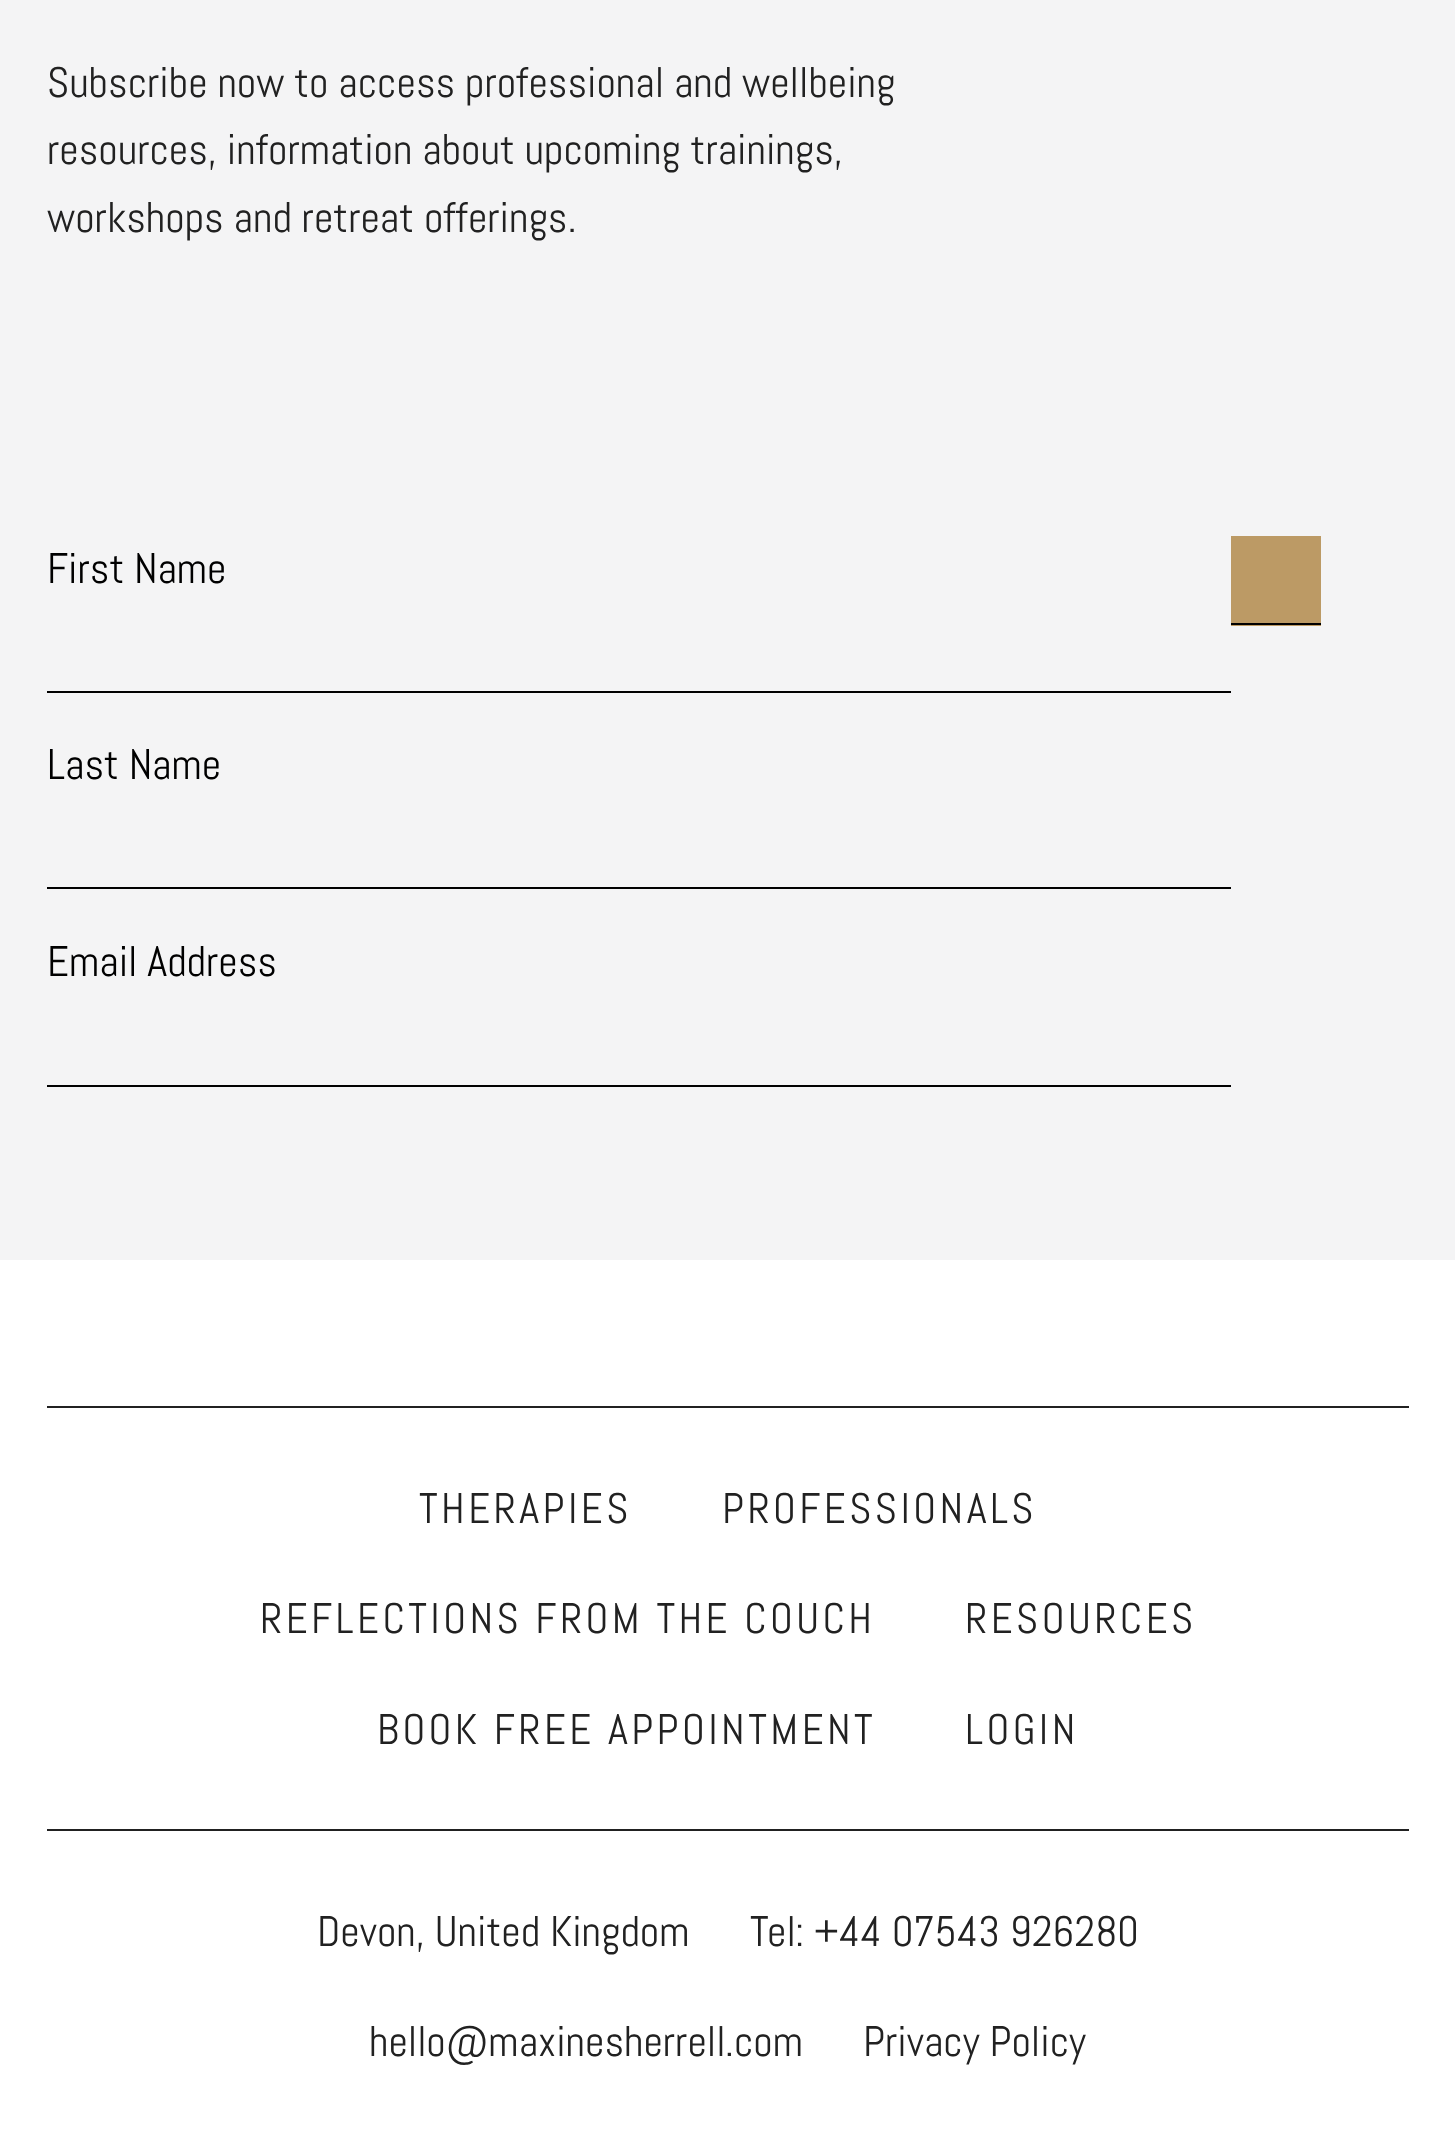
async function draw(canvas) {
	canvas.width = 1455;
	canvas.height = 2140;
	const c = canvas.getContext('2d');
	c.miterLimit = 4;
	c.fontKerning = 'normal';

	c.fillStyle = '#fff';
	c.fillRect(0, 0, 1455, 2140);
	c.fillStyle = '#f4f4f5';
	c.fillRect(0, 0, 1455, 1260);
	c.font = '42.75px Abel';
	c.fillStyle = '#212121';
	for (const [text, x, y] of [
		['Subscribe now to access professional and wellbeing', 47, 97],
		['resources, information about upcoming trainings,', 47, 164],
		['workshops and retreat offerings.', 47, 232],
	]) {
		c.fillText(text, x, y);
	}
	c.fillStyle = '#000';
	c.fillText('First Name', 47, 583);
	for (const [x, y, w, h, color] of [
		[47, 691, 1184, 2, '#000'],
		[1231, 536, 90, 90, '#bc9a65'],
		[1231, 623, 90, 2, '#000'],
	]) {
		c.fillStyle = color;
		c.fillRect(x, y, w, h);
	}
	c.fillText('Last Name', 47, 779);
	c.fillRect(47, 887, 1184, 2);
	c.fillText('Email Address', 47, 976);
	c.fillRect(47, 1085, 1184, 2);
	c.fillStyle = '#212121';
	c.fillRect(47, 1406, 1362, 2);
	c.letterSpacing = '3.4px';
	for (const [text, x, y] of [
		['THERAPIES', 419, 1523],
		['PROFESSIONALS', 722, 1523],
		['REFLECTIONS FROM THE COUCH', 260, 1633],
		['RESOURCES', 965, 1633],
		['BOOK FREE APPOINTMENT', 377, 1744],
		['LOGIN', 965, 1744],
	]) {
		c.fillText(text, x, y);
	}
	c.fillRect(47, 1829, 1362, 2);
	c.letterSpacing = '0px';
	for (const [text, x, y] of [
		['Devon, United Kingdom', 317, 1946],
		['Tel: +44 07543 926280', 750, 1946],
		['hello@maxinesherrell.com', 369, 2056],
		['Privacy Policy', 863, 2056],
	]) {
		c.fillText(text, x, y);
	}
}

draw(document.querySelector('canvas'));
